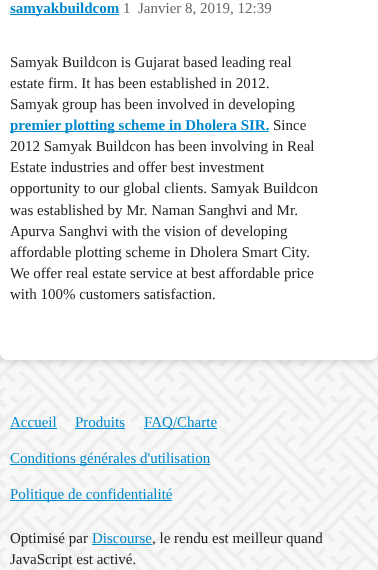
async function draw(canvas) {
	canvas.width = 378;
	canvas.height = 570;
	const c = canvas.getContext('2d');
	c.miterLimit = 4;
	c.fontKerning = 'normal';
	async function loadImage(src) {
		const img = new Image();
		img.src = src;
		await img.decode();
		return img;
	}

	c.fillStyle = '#f8f8f8';
	c.fillRect(0, 0, 378, 570);
	c.drawImage(await loadImage('img1.png'), 0, 356, 378, 214);
	c.fillStyle = '#0000002e';
	c.filter = 'blur(4px)';
	c.beginPath();
	c.roundRect(0, -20, 378, 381, 8);
	c.fill();
	c.filter = 'none';
	c.fillStyle = '#fff';
	c.beginPath();
	c.roundRect(0, -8, 378, 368, 8);
	c.fill();
	c.fillStyle = '#08c';
	c.fillRect(10, 14, 109, 1);
	c.font = 'bold 15px Liberation Serif';
	c.fillText('samyakbuildcom', 10, 13);
	c.font = '15px Liberation Serif';
	c.fillStyle = '#666';
	c.fillText('1', 123, 13);
	c.fillText('Janvier 8, 2019, 12:39', 138, 13);
	c.fillStyle = '#222';
	for (const [text, x, y] of [
		['Samyak Buildcon is Gujarat based leading real', 10, 67],
		['estate firm. It has been established in 2012.', 10, 88],
		['Samyak group has been involved in developing', 10, 109],
	]) {
		c.fillText(text, x, y);
	}
	c.fillStyle = '#08c';
	c.fillRect(10, 131, 259, 1);
	c.font = 'bold 15px Liberation Serif';
	c.fillText('premier plotting scheme in Dholera SIR.', 10, 130);
	c.font = '15px Liberation Serif';
	c.fillStyle = '#222';
	for (const [text, x, y] of [
		['Since', 273, 130],
		['2012 Samyak Buildcon has been involving in Real', 10, 151],
		['Estate industries and offer best investment', 10, 172],
		['opportunity to our global clients. Samyak Buildcon', 10, 193],
		['was established by Mr. Naman Sanghvi and Mr.', 10, 215],
		['Apurva Sanghvi with the vision of developing', 10, 236],
		['affordable plotting scheme in Dholera Smart City.', 10, 257],
		['We offer real estate service at best affordable price', 10, 278],
		['with 100% customers satisfaction.', 10, 299],
	]) {
		c.fillText(text, x, y);
	}
	c.fillStyle = '#08c';
	c.fillText('Accueil', 10, 427);
	c.fillRect(10, 428, 47, 1);
	c.fillText('Produits', 75, 427);
	c.fillRect(75, 428, 50, 1);
	c.fillRect(144, 428, 73, 1);
	c.fillText('FAQ/Charte', 144, 427);
	c.fillRect(10, 464, 200, 1);
	c.fillText('Conditions générales d\'utilisation', 10, 463);
	c.fillRect(10, 500, 162, 1);
	c.fillText('Politique de confidentialité', 10, 499);
	c.fillStyle = '#222';
	c.fillText('Optimisé par', 10, 543);
	c.fillStyle = '#08c';
	c.fillText('Discourse', 92, 543);
	c.fillRect(92, 544, 60, 1);
	c.fillStyle = '#222';
	c.fillText(', le rendu est meilleur quand', 152, 543);
	c.fillText('JavaScript est activé.', 10, 564);
}

draw(document.querySelector('canvas'));
